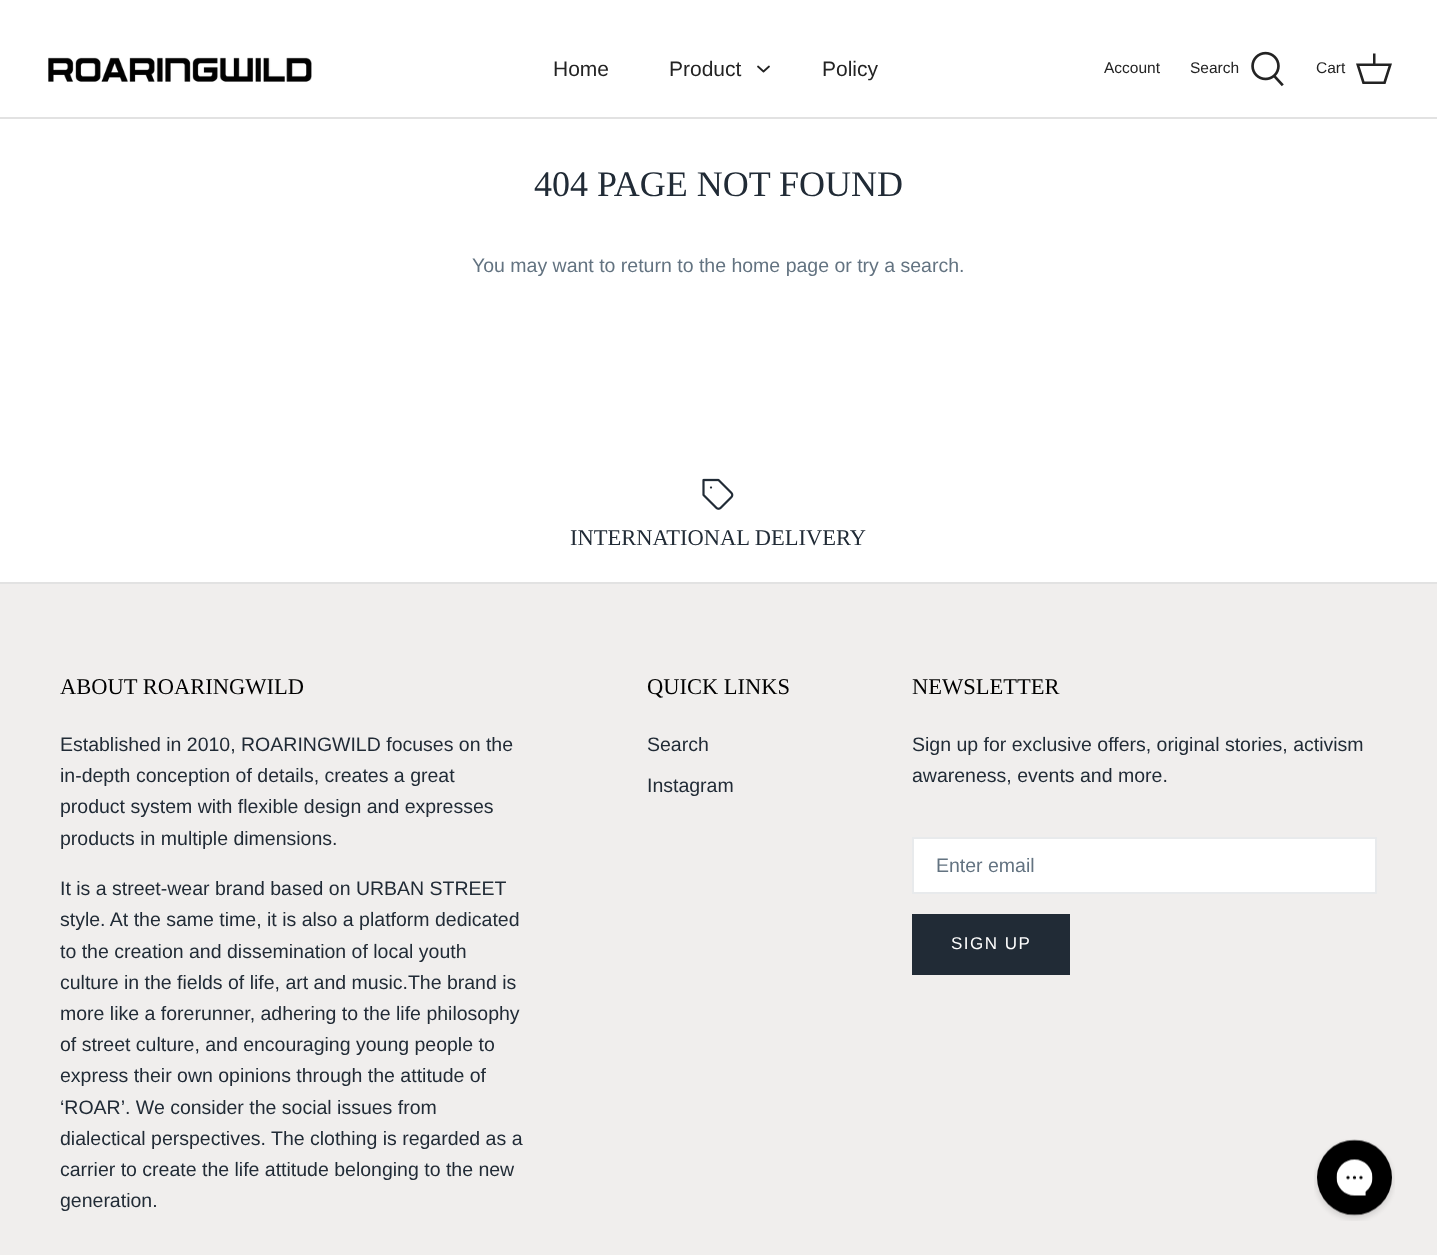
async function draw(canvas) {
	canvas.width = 1437;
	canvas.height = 1255;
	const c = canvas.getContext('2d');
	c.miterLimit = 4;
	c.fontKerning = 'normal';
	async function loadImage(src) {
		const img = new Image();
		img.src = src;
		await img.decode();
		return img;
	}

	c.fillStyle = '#fff';
	c.fillRect(0, 0, 1437, 1255);
	c.fillStyle = '#e2e2e2';
	c.fillRect(0, 117, 1437, 2);
	c.drawImage(await loadImage('img1.png'), 48, 57, 264, 25);
	c.font = '21px Liberation Sans';
	c.fillStyle = '#232323';
	c.fillText('Home', 553, 76);
	c.fillText('Product', 669, 76);
	c.beginPath();
	c.moveTo(758, 66.5);
	c.lineTo(763.5, 71.5);
	c.lineTo(769, 66.5);
	c.strokeStyle = '#232323';
	c.lineWidth = 1.8;
	c.lineCap = 'round';
	c.lineJoin = 'round';
	c.stroke();
	c.fillText('Policy', 822, 76);
	c.font = '15.5px Liberation Sans';
	c.fillText('Account', 1104, 73);
	c.fillText('Search', 1190, 73);
	c.drawImage(await loadImage('img2.png'), 1251, 51, 33, 36);
	c.fillText('Cart', 1316, 73);
	c.beginPath();
	c.moveTo(1373, 63.5);
	c.lineTo(1373, 53.5);
	c.lineTo(1375.5, 53.5);
	c.lineTo(1375.5, 63.5);
	c.lineTo(1392, 63.5);
	c.lineTo(1385.5, 84);
	c.lineTo(1362.5, 84);
	c.lineTo(1356, 63.5);
	c.closePath();
	c.moveTo(1359.5, 66);
	c.lineTo(1364.5, 81.5);
	c.lineTo(1383.5, 81.5);
	c.lineTo(1388.5, 66);
	c.closePath();
	c.fill();
	c.font = '36px Liberation Serif';
	c.fillStyle = '#212b36';
	c.fillText('404 PAGE NOT FOUND', 534, 196);
	c.font = '19.5px Liberation Sans';
	c.fillStyle = '#637381';
	c.fillText('You may want to return to the home page or try a search.', 472, 272);
	c.fillStyle = '#f0eeed';
	c.fillRect(0, 584, 1437, 671);
	c.drawImage(await loadImage('img3.png'), 702, 478, 32, 32);
	c.font = '22.5px Liberation Serif';
	c.fillStyle = '#212b36';
	c.fillText('INTERNATIONAL DELIVERY', 570, 545);
	c.fillStyle = '#e2e2e2';
	c.fillRect(0, 582, 1437, 2);
	c.fillStyle = '#000';
	c.fillText('ABOUT ROARINGWILD', 60, 694);
	c.font = '19.5px Liberation Sans';
	c.fillStyle = '#212b36';
	for (const [text, x, y] of [
		['Established in 2010, ROARINGWILD focuses on the', 60, 751],
		['in-depth conception of details, creates a great', 60, 782],
		['product system with flexible design and expresses', 60, 813],
		['products in multiple dimensions.', 60, 845],
		['It is a street-wear brand based on URBAN STREET', 60, 895],
		['style. At the same time, it is also a platform dedicated', 60, 926],
		['to the creation and dissemination of local youth', 60, 958],
		['culture in the fields of life, art and music.The brand is', 60, 989],
		['more like a forerunner, adhering to the life philosophy', 60, 1020],
		['of street culture, and encouraging young people to', 60, 1051],
		['express their own opinions through the attitude of', 60, 1082],
		['‘ROAR’. We consider the social issues from', 60, 1114],
		['dialectical perspectives. The clothing is regarded as a', 60, 1145],
		['carrier to create the life attitude belonging to the new', 60, 1176],
		['generation.', 60, 1207],
	]) {
		c.fillText(text, x, y);
	}
	c.font = '22.5px Liberation Serif';
	c.fillStyle = '#000';
	c.fillText('QUICK LINKS', 647, 694);
	c.font = '19.5px Liberation Sans';
	c.fillStyle = '#212b36';
	c.fillText('Search', 647, 751);
	c.fillText('Instagram', 647, 792);
	c.font = '22.5px Liberation Serif';
	c.fillStyle = '#000';
	c.fillText('NEWSLETTER', 912, 694);
	c.font = '19.5px Liberation Sans';
	c.fillStyle = '#212b36';
	c.fillText('Sign up for exclusive offers, original stories, activism', 912, 751);
	c.fillText('awareness, events and more.', 912, 782);
	c.fillStyle = '#fff';
	c.beginPath();
	c.rect(913, 838, 463, 55);
	c.fill();
	c.strokeStyle = '#e8eaec';
	c.lineWidth = 2;
	c.lineJoin = 'miter';
	c.stroke();
	c.fillStyle = '#637381';
	c.fillText('Enter email', 936, 872);
	c.fillStyle = '#212b36';
	c.fillRect(912, 914, 158, 61);
	c.letterSpacing = '1.5px';
	c.font = '17px Liberation Sans';
	c.fillStyle = '#fff';
	c.fillText('SIGN UP', 951, 949);
	c.drawImage(await loadImage('img4.png'), 1314, 1139, 81, 82);
}

draw(document.querySelector('canvas'));
